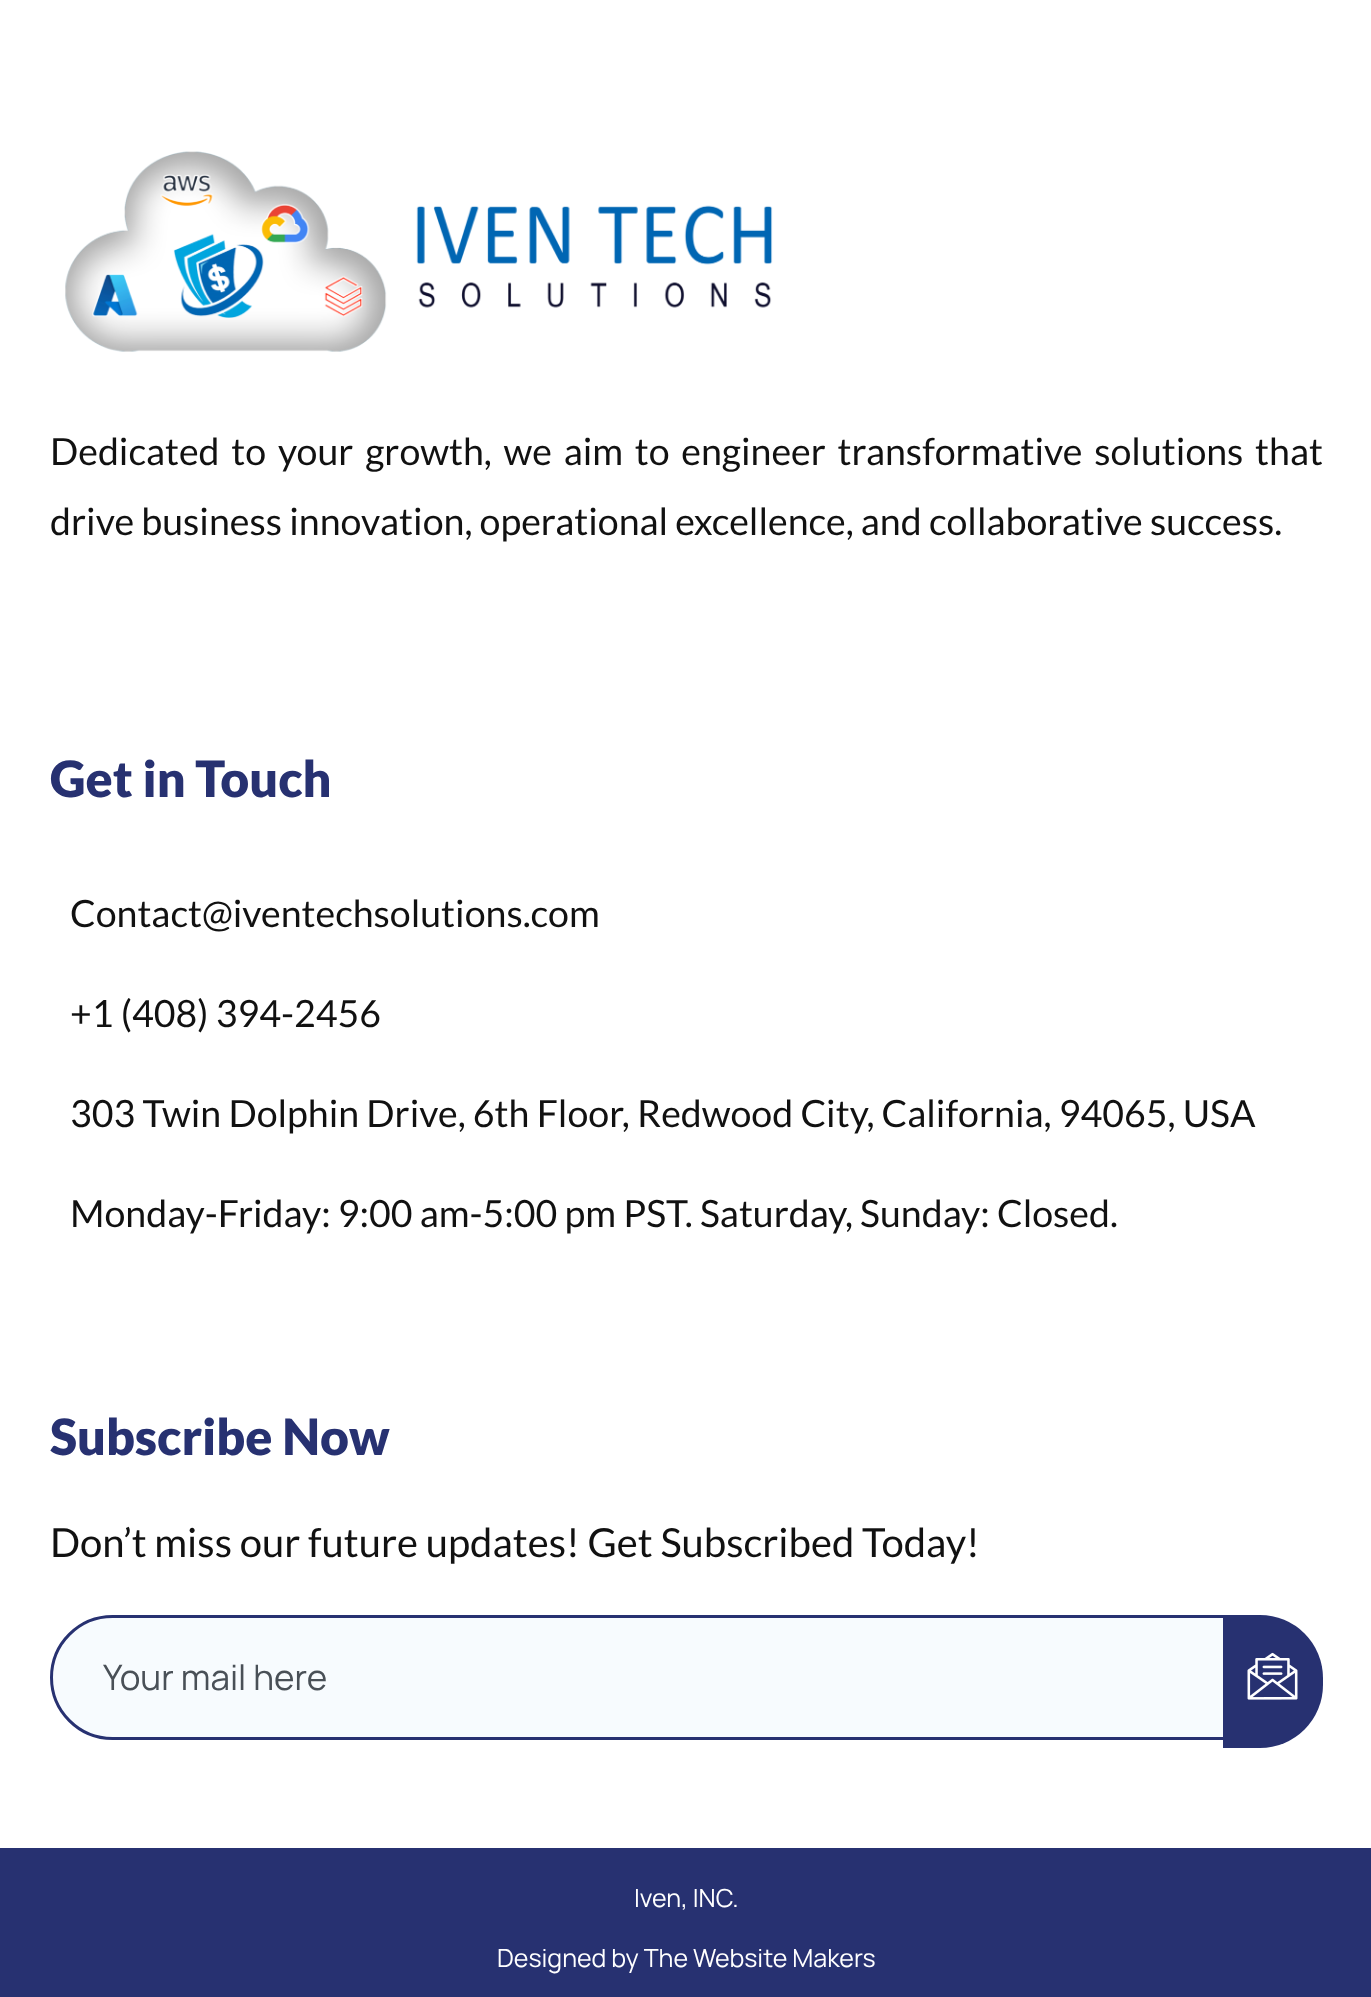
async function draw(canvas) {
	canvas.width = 1371;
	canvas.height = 1997;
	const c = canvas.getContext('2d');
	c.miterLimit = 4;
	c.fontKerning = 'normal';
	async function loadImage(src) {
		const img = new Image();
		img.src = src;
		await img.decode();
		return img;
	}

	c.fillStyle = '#fff';
	c.fillRect(0, 0, 1371, 1997);
	c.drawImage(await loadImage('img1.png'), 65, 151, 708, 201);
	c.wordSpacing = '4.5px';
	c.font = '37.5px Lato';
	c.fillStyle = '#111';
	c.fillText('Dedicated to your growth, we aim to engineer transformative solutions that', 50, 465);
	c.wordSpacing = '0px';
	c.fillText('drive business innovation, operational excellence, and collaborative success.', 50, 535);
	c.font = '900 50px Lato';
	c.fillStyle = '#273171';
	c.fillText('Get in Touch', 50, 797);
	c.font = '37.5px Lato';
	c.fillStyle = '#111';
	for (const [text, x, y] of [
		['Contact@iventechsolutions.com', 70, 927],
		['+1 (408) 394-2456', 70, 1027],
		['303 Twin Dolphin Drive, 6th Floor, Redwood City, California, 94065, USA', 70, 1127],
		['Monday-Friday: 9:00 am-5:00 pm PST. Saturday, Sunday: Closed.', 70, 1227],
	]) {
		c.fillText(text, x, y);
	}
	c.font = '900 50px Lato';
	c.fillStyle = '#273171';
	c.fillText('Subscribe Now', 50, 1455);
	c.font = '40px Lato';
	c.fillStyle = '#111';
	c.fillText('Don’t miss our future updates! Get Subscribed Today!', 50, 1557);
	c.fillStyle = '#f7fbfe';
	c.beginPath();
	c.roundRect(51.5, 1616.5, 1175, 122, [61, 0, 0, 61]);
	c.fill();
	c.strokeStyle = '#273171';
	c.lineWidth = 3;
	c.stroke();
	c.font = '35px Manrope';
	c.fillStyle = '#495057';
	c.fillText('Your mail here', 103, 1690);
	c.fillStyle = '#273171';
	c.beginPath();
	c.roundRect(1223, 1615, 100, 133, [0, 63, 63, 0]);
	c.fill();
	c.drawImage(await loadImage('img2.png'), 1247, 1652, 51, 48);
	c.fillRect(0, 1848, 1371, 149);
	c.font = '25px Manrope';
	c.fillStyle = '#fff';
	c.fillText('Iven, INC.', 634, 1907);
	c.fillText('Designed by The Website Makers', 497, 1967);
}

draw(document.querySelector('canvas'));
